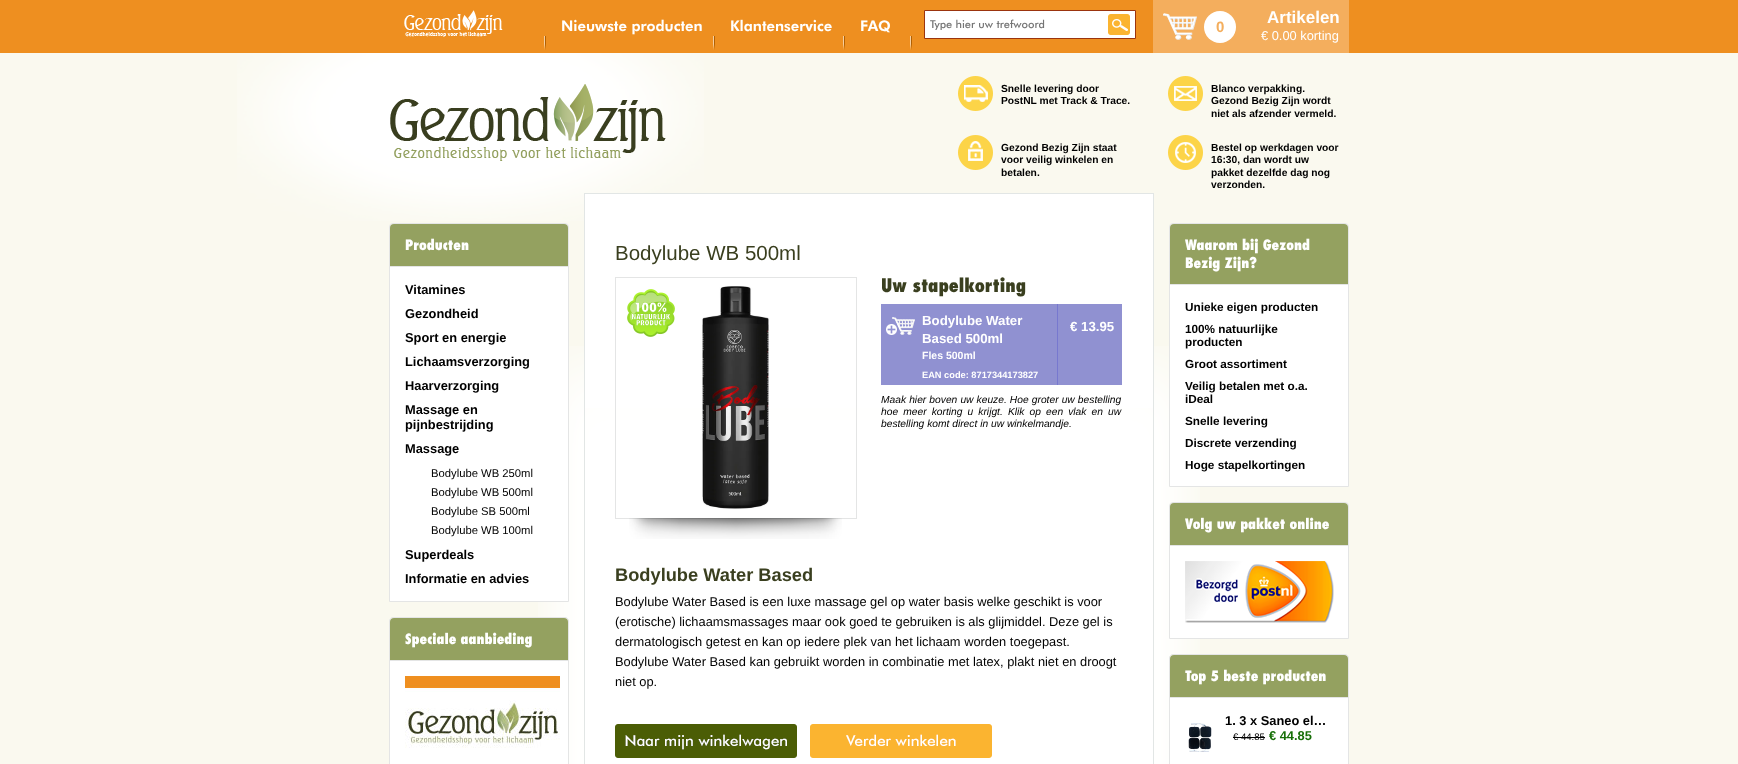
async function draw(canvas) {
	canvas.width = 1738;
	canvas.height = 764;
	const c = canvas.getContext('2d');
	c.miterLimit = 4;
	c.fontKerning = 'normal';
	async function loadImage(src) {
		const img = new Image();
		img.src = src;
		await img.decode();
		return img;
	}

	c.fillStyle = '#faf9ef';
	c.fillRect(0, 0, 1738, 764);
	c.fillStyle = '#ee8f20';
	c.fillRect(0, 0, 1738, 53);
	c.drawImage(await loadImage('img1.png'), 404, 10, 99, 27);
	c.font = '900 14.75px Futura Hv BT';
	c.fillStyle = '#fff';
	c.fillText('Nieuwste producten', 561, 31);
	c.drawImage(await loadImage('img2.png'), 544, 36, 2, 14);
	c.fillText('Klantenservice', 730, 31);
	c.drawImage(await loadImage('img2.png'), 713, 36, 2, 14);
	c.fillText('FAQ', 860, 31);
	c.drawImage(await loadImage('img2.png'), 843, 36, 2, 14);
	c.drawImage(await loadImage('img2.png'), 910, 36, 2, 14);
	c.beginPath();
	c.rect(924.5, 10.5, 211, 28);
	c.fill();
	c.strokeStyle = '#9b340e';
	c.stroke();
	c.save();
	c.beginPath();
	c.rect(930, 19, 200, 11);
	c.clip();
	c.font = '500 11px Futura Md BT';
	c.fillStyle = '#757575';
	c.fillText('Type hier uw trefwoord', 930, 28);
	c.restore();
	c.drawImage(await loadImage('img3.png'), 1108, 14, 22, 21);
	c.fillStyle = '#f4ae5d';
	c.fillRect(1153, 0, 196, 53);
	c.drawImage(await loadImage('img4.png'), 1163, 13, 34, 27);
	c.fillStyle = '#fff';
	c.beginPath();
	c.arc(1220, 27, 16, 0, 2 * Math.PI);
	c.fill();
	c.font = 'bold 15px Liberation Sans';
	c.fillStyle = '#f4ae5d';
	c.fillText('0', 1216, 32);
	c.font = 'bold 17px Liberation Sans';
	c.fillStyle = '#fff';
	c.fillText('Artikelen', 1267, 23);
	c.font = '12.85px Liberation Sans';
	c.fillText('€ 0.00 korting', 1261, 40);
	c.drawImage(await loadImage('img5.png'), 237, 53, 467, 168);
	c.drawImage(await loadImage('img6.png'), 390, 84, 276, 77);
	c.drawImage(await loadImage('img7.png'), 958, 76, 35, 35);
	c.font = 'bold 10.25px Liberation Sans';
	c.fillStyle = '#000';
	c.fillText('Snelle levering door', 1001, 92);
	c.fillText('PostNL met Track & Trace.', 1001, 104);
	c.drawImage(await loadImage('img8.png'), 958, 135, 35, 35);
	for (const [text, x, y] of [
		['Gezond Bezig Zijn staat', 1001, 151],
		['voor veilig winkelen en', 1001, 163],
		['betalen.', 1001, 176],
	]) {
		c.fillText(text, x, y);
	}
	c.drawImage(await loadImage('img9.png'), 1168, 76, 35, 35);
	for (const [text, x, y] of [
		['Blanco verpakking.', 1211, 92],
		['Gezond Bezig Zijn wordt', 1211, 104],
		['niet als afzender vermeld.', 1211, 117],
	]) {
		c.fillText(text, x, y);
	}
	c.drawImage(await loadImage('img10.png'), 1168, 135, 35, 35);
	for (const [text, x, y] of [
		['Bestel op werkdagen voor', 1211, 151],
		['16:30, dan wordt uw', 1211, 163],
		['pakket dezelfde dag nog', 1211, 176],
		['verzonden.', 1211, 188],
	]) {
		c.fillText(text, x, y);
	}
	c.drawImage(await loadImage('img11.png'), 538, 346, 662, 418);
	c.fillStyle = '#fff';
	c.beginPath();
	c.roundRect(389.5, 223.5, 179, 378, [3.5, 3.5, 0, 0]);
	c.fill();
	c.strokeStyle = '#e4e5e5';
	c.stroke();
	c.fillStyle = '#94a160';
	c.beginPath();
	c.roundRect(390, 224, 178, 43, [4, 4, 0, 0]);
	c.fill();
	c.fillStyle = '#e4e5e5';
	c.fillRect(390, 266, 178, 1);
	c.font = '800 14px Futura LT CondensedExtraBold';
	c.fillStyle = '#fff';
	c.fillText('Producten', 405, 250);
	c.font = 'bold 12.85px Liberation Sans';
	c.fillStyle = '#000';
	for (const [text, x, y] of [
		['Vitamines', 405, 294],
		['Gezondheid', 405, 318],
		['Sport en energie', 405, 342],
		['Lichaamsverzorging', 405, 366],
		['Haarverzorging', 405, 390],
		['Massage en', 405, 414],
		['pijnbestrijding', 405, 429],
		['Massage', 405, 453],
	]) {
		c.fillText(text, x, y);
	}
	c.font = '11.25px Liberation Sans';
	for (const [text, x, y] of [
		['Bodylube WB 250ml', 431, 477],
		['Bodylube WB 500ml', 431, 496],
		['Bodylube SB 500ml', 431, 515],
		['Bodylube WB 100ml', 431, 534],
	]) {
		c.fillText(text, x, y);
	}
	c.font = 'bold 12.85px Liberation Sans';
	c.fillText('Superdeals', 405, 559);
	c.fillText('Informatie en advies', 405, 583);
	c.fillStyle = '#fff';
	c.beginPath();
	c.moveTo(393, 617.5);
	c.lineTo(565, 617.5);
	c.bezierCurveTo(567, 617.5, 568.5, 619, 568.5, 621);
	c.lineTo(568.5, 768.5);
	c.lineTo(389.5, 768.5);
	c.lineTo(389.5, 621);
	c.bezierCurveTo(389.5, 619, 391, 617.5, 393, 617.5);
	c.closePath();
	c.fill();
	c.stroke();
	c.fillStyle = '#94a160';
	c.beginPath();
	c.roundRect(390, 618, 178, 43, [4, 4, 0, 0]);
	c.fill();
	c.fillStyle = '#e4e5e5';
	c.fillRect(390, 660, 178, 1);
	c.font = '800 14px Futura LT CondensedExtraBold';
	c.fillStyle = '#fff';
	c.fillText('Speciale aanbieding', 405, 644);
	c.drawImage(await loadImage('img12.png'), 405, 676, 155, 72);
	c.fillRect(585, 194, 568, 214);
	c.strokeStyle = '#e2e6e5';
	c.strokeRect(584.5, 193.5, 569, 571);
	c.font = '20.5px Liberation Sans';
	c.fillStyle = '#3a3f1f';
	c.fillText('Bodylube WB 500ml', 615, 260);
	c.strokeStyle = '#e4e5e5';
	c.strokeRect(615.5, 277.5, 241, 241);
	c.drawImage(await loadImage('img13.png'), 627, 289, 48, 48);
	c.drawImage(await loadImage('img14.png'), 702, 286, 68, 223);
	c.drawImage(await loadImage('img15.png'), 629, 518, 213, 21);
	c.font = '800 18.25px Futura LT CondensedExtraBold';
	c.fillText('Uw stapelkorting', 881, 292);
	c.fillStyle = '#9091d1';
	c.fillRect(881, 304, 241, 81);
	c.fillStyle = '#7778cf';
	c.fillRect(1057, 304, 1, 81);
	c.drawImage(await loadImage('img16.png'), 886, 317, 29, 18);
	c.font = 'bold 13.25px Liberation Sans';
	c.fillStyle = '#fff';
	c.fillText('Bodylube Water', 922, 325);
	c.fillText('Based 500ml', 922, 343);
	c.font = 'bold 10.5px Liberation Sans';
	c.fillText('Fles 500ml', 922, 359);
	c.font = 'bold 9.25px Liberation Sans';
	c.fillText('EAN code: 8717344173827', 922, 378);
	c.font = 'bold 13.25px Liberation Sans';
	c.fillText('€ 13.95', 1070, 331);
	c.wordSpacing = '0.25px';
	c.font = 'italic 10.25px Liberation Sans';
	c.fillStyle = '#000';
	c.fillText('Maak hier boven uw keuze. Hoe groter uw bestelling', 881, 403);
	c.wordSpacing = '2.25px';
	c.fillText('hoe meer korting u krijgt. Klik op een vlak en uw', 881, 415);
	c.wordSpacing = '0px';
	c.fillText('bestelling komt direct in uw winkelmandje.', 881, 427);
	c.font = 'bold 18.25px Liberation Sans';
	c.fillStyle = '#3a3f1f';
	c.fillText('Bodylube Water Based', 615, 581);
	c.font = '12.85px Liberation Sans';
	c.fillStyle = '#000';
	for (const [text, x, y] of [
		['Bodylube Water Based is een luxe massage gel op water basis welke geschikt is voor', 615, 606],
		['(erotische) lichaamsmassages maar ook goed te gebruiken is als glijmiddel. Deze gel is', 615, 626],
		['dermatologisch getest en kan op iedere plek van het lichaam worden toegepast.', 615, 646],
		['Bodylube Water Based kan gebruikt worden in combinatie met latex, plakt niet en droogt', 615, 666],
		['niet op.', 615, 686],
	]) {
		c.fillText(text, x, y);
	}
	c.drawImage(await loadImage('img17.png'), 615, 724, 182, 34);
	c.drawImage(await loadImage('img18.png'), 810, 724, 182, 34);
	c.fillStyle = '#fff';
	c.beginPath();
	c.roundRect(1169.5, 223.5, 179, 263, [3.5, 3.5, 0, 0]);
	c.fill();
	c.stroke();
	c.fillStyle = '#94a160';
	c.beginPath();
	c.roundRect(1170, 224, 178, 61, [4, 4, 0, 0]);
	c.fill();
	c.fillStyle = '#e4e5e5';
	c.fillRect(1170, 284, 178, 1);
	c.font = '800 14px Futura LT CondensedExtraBold';
	c.fillStyle = '#fff';
	c.fillText('Waarom bij Gezond', 1185, 250);
	c.fillText('Bezig Zijn?', 1185, 268);
	c.font = 'bold 11.75px Liberation Sans';
	c.fillStyle = '#000';
	for (const [text, x, y] of [
		['Unieke eigen producten', 1185, 311],
		['100% natuurlijke', 1185, 333],
		['producten', 1185, 346],
		['Groot assortiment', 1185, 368],
		['Veilig betalen met o.a.', 1185, 390],
		['iDeal', 1185, 403],
		['Snelle levering', 1185, 425],
		['Discrete verzending', 1185, 447],
		['Hoge stapelkortingen', 1185, 469],
	]) {
		c.fillText(text, x, y);
	}
	c.fillStyle = '#fff';
	c.beginPath();
	c.roundRect(1169.5, 502.5, 179, 136, [3.5, 3.5, 0, 0]);
	c.fill();
	c.stroke();
	c.fillStyle = '#94a160';
	c.beginPath();
	c.roundRect(1170, 503, 178, 43, [4, 4, 0, 0]);
	c.fill();
	c.fillStyle = '#e4e5e5';
	c.fillRect(1170, 545, 178, 1);
	c.font = '800 14px Futura LT CondensedExtraBold';
	c.fillStyle = '#fff';
	c.fillText('Volg uw pakket online', 1185, 529);
	c.drawImage(await loadImage('img19.png'), 1185, 561, 149, 62);
	c.beginPath();
	c.moveTo(1173, 654.5);
	c.lineTo(1345, 654.5);
	c.bezierCurveTo(1347, 654.5, 1348.5, 656, 1348.5, 658);
	c.lineTo(1348.5, 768.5);
	c.lineTo(1169.5, 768.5);
	c.lineTo(1169.5, 658);
	c.bezierCurveTo(1169.5, 656, 1171, 654.5, 1173, 654.5);
	c.closePath();
	c.fill();
	c.stroke();
	c.fillStyle = '#94a160';
	c.beginPath();
	c.roundRect(1170, 655, 178, 43, [4, 4, 0, 0]);
	c.fill();
	c.fillStyle = '#e4e5e5';
	c.fillRect(1170, 697, 178, 1);
	c.fillStyle = '#fff';
	c.fillText('Top 5 beste producten', 1185, 681);
	c.drawImage(await loadImage('img20.png'), 1188, 723, 24, 29);
	c.font = 'bold 12.85px Liberation Sans';
	c.fillStyle = '#000';
	c.fillText('1. 3 x Saneo el…', 1225, 725);
	c.font = '9.5px Liberation Sans';
	c.fillText('€ 44.85', 1233, 740);
	c.fillRect(1233, 737, 32, 1);
	c.font = 'bold 12.85px Liberation Sans';
	c.fillStyle = '#176f08';
	c.fillText('€ 44.85', 1269, 740);
}

draw(document.querySelector('canvas'));
